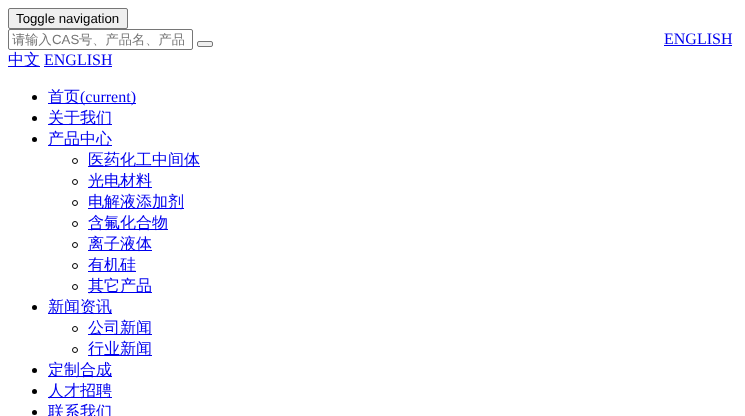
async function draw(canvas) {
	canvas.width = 745;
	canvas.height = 416;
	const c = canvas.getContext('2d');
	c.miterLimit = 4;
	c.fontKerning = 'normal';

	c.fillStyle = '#fff';
	c.fillRect(0, 0, 745, 416);
	c.fillStyle = '#efefef';
	c.beginPath();
	c.roundRect(8.5, 8.5, 119, 20, 1.5);
	c.fill();
	c.strokeStyle = '#767676';
	c.stroke();
	c.font = '13.25px Liberation Sans';
	c.fillStyle = '#000';
	c.fillText('Toggle navigation', 16, 23);
	c.font = '16px Liberation Serif';
	c.fillStyle = '#00e';
	c.fillText('ENGLISH', 664, 44);
	c.fillRect(664, 45, 68, 1);
	c.beginPath();
	c.roundRect(8.5, 29.5, 184, 20, 1.5);
	c.stroke();
	c.font = '500 13.25px WenQuanYi Zen Hei';
	c.fillStyle = '#757575';
	c.fillText('请输入', 12, 44);
	c.font = '13.25px Liberation Sans';
	c.fillText('CAS', 52, 44);
	c.font = '500 13.25px WenQuanYi Zen Hei';
	c.fillText('号、产品名、产品', 79, 44);
	c.fillStyle = '#efefef';
	c.beginPath();
	c.roundRect(197.5, 41.5, 15, 5, 1.5);
	c.fill();
	c.stroke();
	c.fillStyle = '#00e';
	c.fillRect(8, 66, 32, 1);
	c.font = '500 16px WenQuanYi Zen Hei';
	c.fillText('中文', 8, 65);
	c.font = '16px Liberation Serif';
	c.fillText('ENGLISH', 44, 65);
	c.fillRect(44, 66, 68, 1);
	c.fillStyle = '#000';
	c.beginPath();
	c.arc(34.5, 97.5, 2.5, 0, 2 * Math.PI);
	c.fill();
	c.fillStyle = '#00e';
	c.fillRect(48, 103, 88, 1);
	c.font = '500 16px WenQuanYi Zen Hei';
	c.fillText('首页', 48, 102);
	c.font = '16px Liberation Serif';
	c.fillText('(current)', 80, 102);
	c.fillStyle = '#000';
	c.beginPath();
	c.arc(34.5, 118.5, 2.5, 0, 2 * Math.PI);
	c.fill();
	c.fillStyle = '#00e';
	c.fillRect(48, 124, 64, 1);
	c.font = '500 16px WenQuanYi Zen Hei';
	c.fillText('关于我们', 48, 123);
	c.fillStyle = '#000';
	c.beginPath();
	c.arc(34.5, 139.5, 2.5, 0, 2 * Math.PI);
	c.fill();
	c.fillStyle = '#00e';
	c.fillRect(48, 145, 64, 1);
	c.fillText('产品中心', 48, 144);
	c.beginPath();
	c.arc(75, 161, 2.5, 0, 2 * Math.PI);
	c.strokeStyle = '#000';
	c.stroke();
	c.fillRect(88, 166, 112, 1);
	c.fillText('医药化工中间体', 88, 165);
	c.beginPath();
	c.arc(75, 182, 2.5, 0, 2 * Math.PI);
	c.stroke();
	c.fillRect(88, 187, 64, 1);
	c.fillText('光电材料', 88, 186);
	c.beginPath();
	c.arc(75, 203, 2.5, 0, 2 * Math.PI);
	c.stroke();
	c.fillRect(88, 208, 96, 1);
	c.fillText('电解液添加剂', 88, 207);
	c.beginPath();
	c.arc(75, 224, 2.5, 0, 2 * Math.PI);
	c.stroke();
	c.fillRect(88, 229, 80, 1);
	c.fillText('含氟化合物', 88, 228);
	c.beginPath();
	c.arc(75, 245, 2.5, 0, 2 * Math.PI);
	c.stroke();
	c.fillRect(88, 250, 64, 1);
	c.fillText('离子液体', 88, 249);
	c.beginPath();
	c.arc(75, 266, 2.5, 0, 2 * Math.PI);
	c.stroke();
	c.fillRect(88, 271, 48, 1);
	c.fillText('有机硅', 88, 270);
	c.beginPath();
	c.arc(75, 287, 2.5, 0, 2 * Math.PI);
	c.stroke();
	c.fillRect(88, 292, 64, 1);
	c.fillText('其它产品', 88, 291);
	c.fillStyle = '#000';
	c.beginPath();
	c.arc(34.5, 307.5, 2.5, 0, 2 * Math.PI);
	c.fill();
	c.fillStyle = '#00e';
	c.fillRect(48, 313, 64, 1);
	c.fillText('新闻资讯', 48, 312);
	c.beginPath();
	c.arc(75, 329, 2.5, 0, 2 * Math.PI);
	c.stroke();
	c.fillRect(88, 334, 64, 1);
	c.fillText('公司新闻', 88, 333);
	c.beginPath();
	c.arc(75, 350, 2.5, 0, 2 * Math.PI);
	c.stroke();
	c.fillRect(88, 355, 64, 1);
	c.fillText('行业新闻', 88, 354);
	c.fillStyle = '#000';
	c.beginPath();
	c.arc(34.5, 370.5, 2.5, 0, 2 * Math.PI);
	c.fill();
	c.fillStyle = '#00e';
	c.fillRect(48, 376, 64, 1);
	c.fillText('定制合成', 48, 375);
	c.fillStyle = '#000';
	c.beginPath();
	c.arc(34.5, 391.5, 2.5, 0, 2 * Math.PI);
	c.fill();
	c.fillStyle = '#00e';
	c.fillRect(48, 397, 64, 1);
	c.fillText('人才招聘', 48, 396);
	c.fillStyle = '#000';
	c.beginPath();
	c.arc(34.5, 412.5, 2.5, 0, 2 * Math.PI);
	c.fill();
	c.fillStyle = '#00e';
	c.fillText('联系我们', 48, 417);
}

draw(document.querySelector('canvas'));
